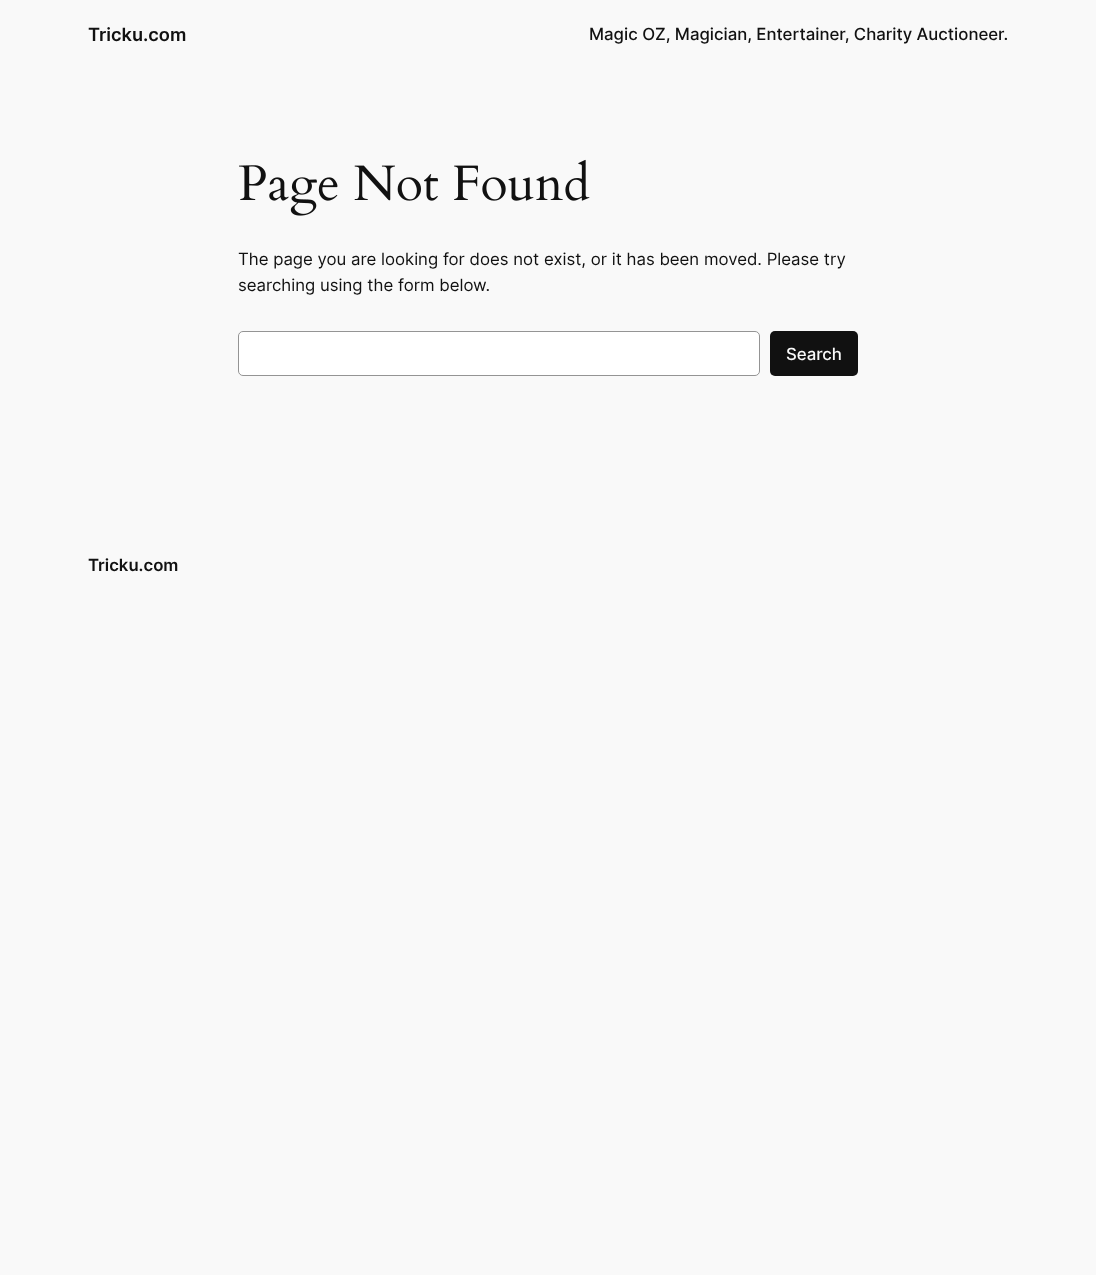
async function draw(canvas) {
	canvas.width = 1096;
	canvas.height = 1275;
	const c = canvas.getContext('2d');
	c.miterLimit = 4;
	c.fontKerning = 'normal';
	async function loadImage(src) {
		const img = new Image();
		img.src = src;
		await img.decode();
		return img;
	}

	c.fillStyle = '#f9f9f9';
	c.fillRect(0, 0, 1096, 1275);
	c.font = '600 18.25px Inter';
	c.fillStyle = '#111';
	c.fillText('Tricku.com', 88, 41);
	c.font = '500 16.8px Inter';
	c.fillText('Magic OZ, Magician, Entertainer, Charity Auctioneer.', 589, 40);
	c.drawImage(await loadImage('img1.png'), 239, 159, 351, 57);
	c.font = '16.8px Inter';
	c.fillText('The page you are looking for does not exist, or it has been moved. Please try', 238, 265);
	c.fillText('searching using the form below.', 238, 291);
	c.fillStyle = '#fff';
	c.beginPath();
	c.roundRect(238.5, 331.5, 521, 44, 4.5);
	c.fill();
	c.strokeStyle = '#949494';
	c.stroke();
	c.fillStyle = '#111';
	c.beginPath();
	c.roundRect(770, 331, 88, 45, 5);
	c.fill();
	c.font = '500 16.8px Inter';
	c.fillStyle = '#f9f9f9';
	c.fillText('Search', 786, 360);
	c.font = '600 16.8px Inter';
	c.fillStyle = '#111';
	c.fillText('Tricku.com', 88, 571);
}

draw(document.querySelector('canvas'));
